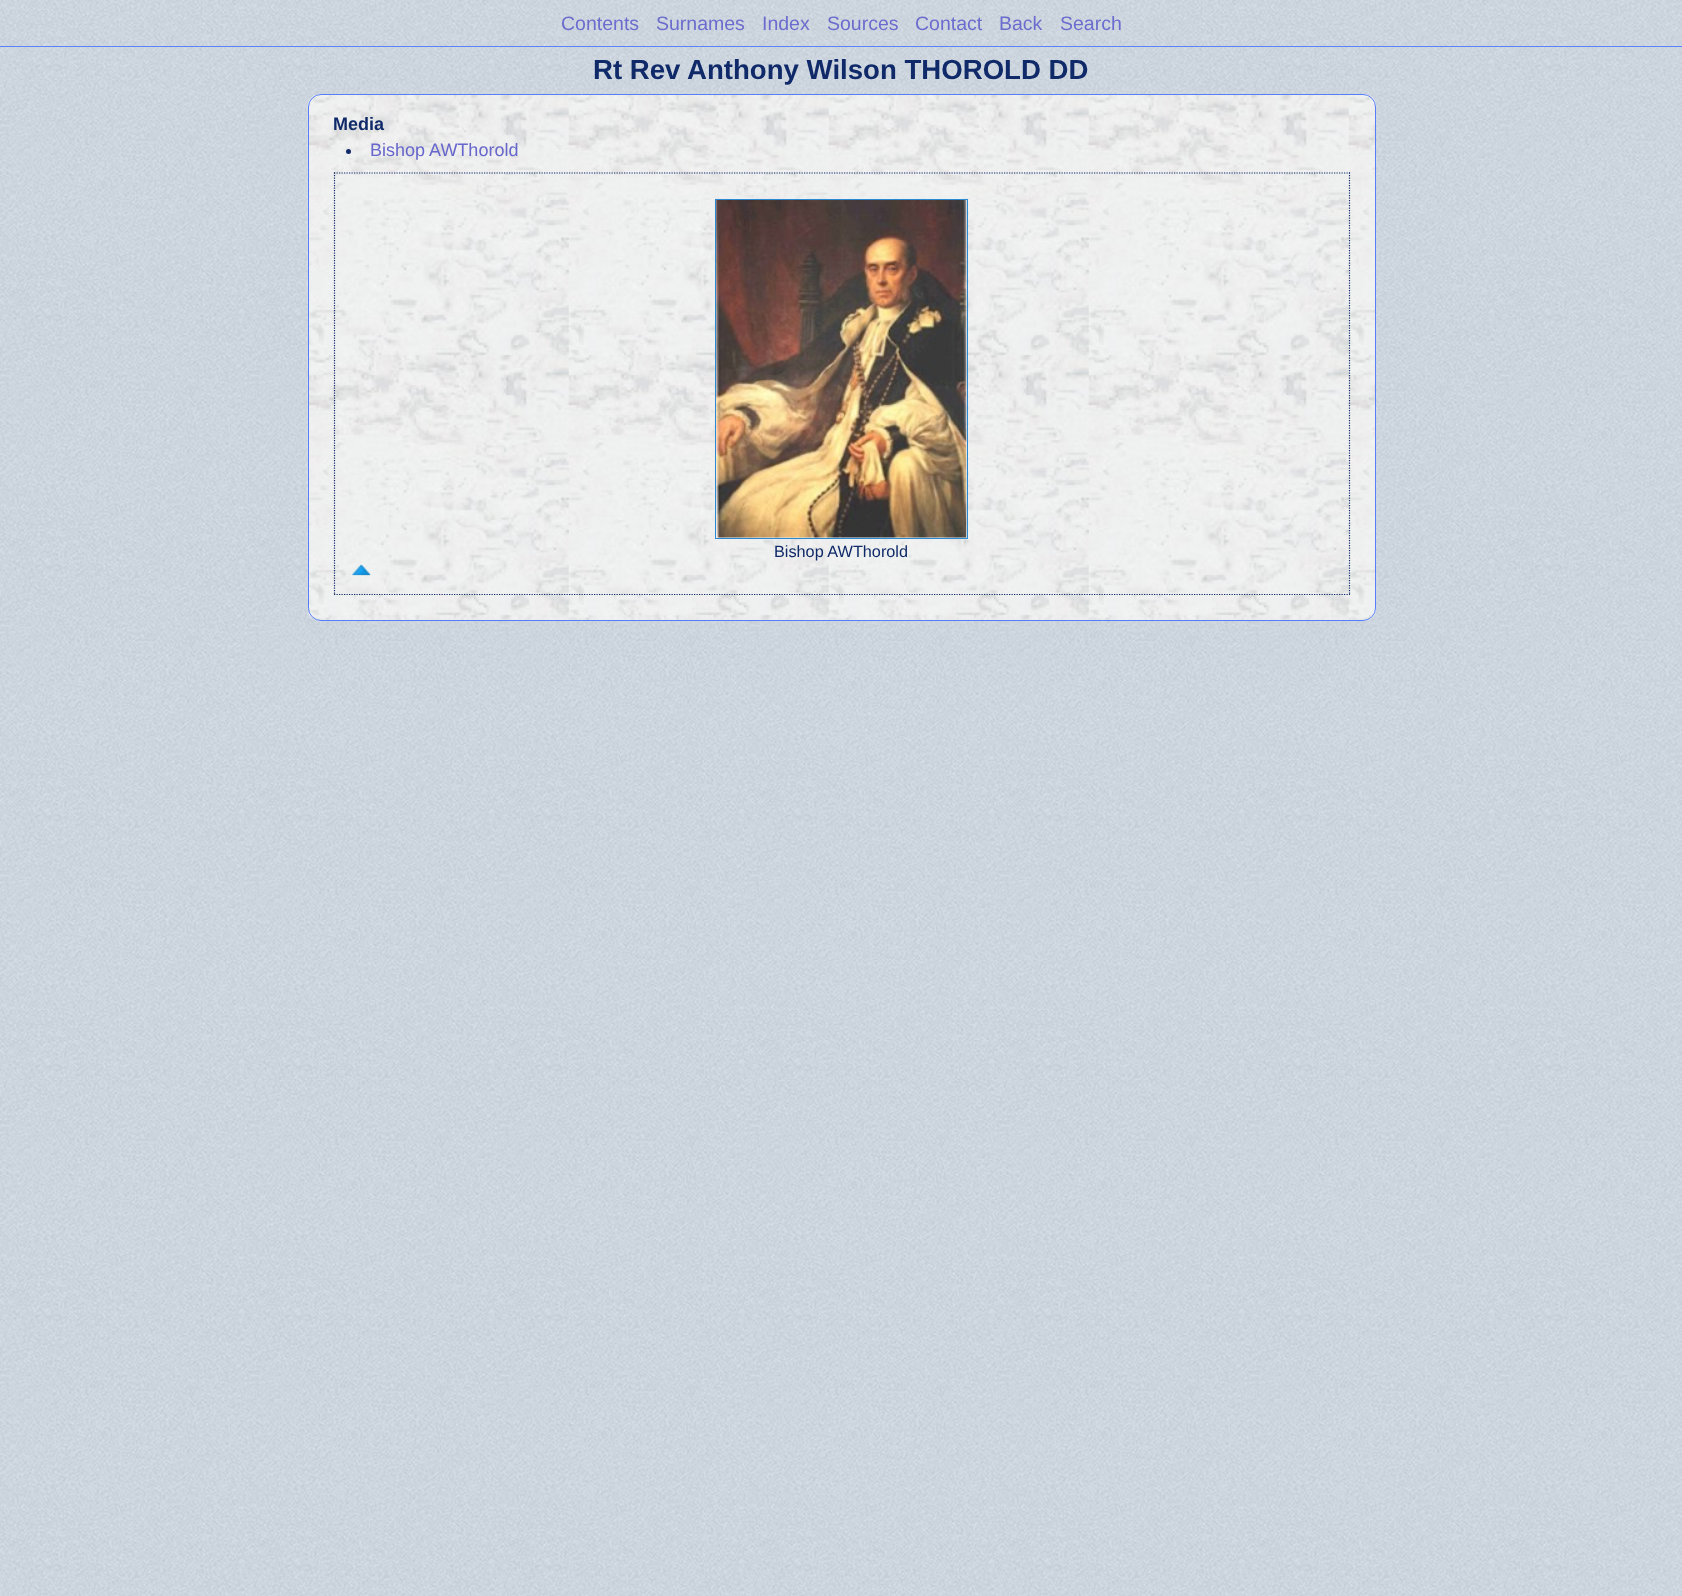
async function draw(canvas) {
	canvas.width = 1682;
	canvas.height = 1596;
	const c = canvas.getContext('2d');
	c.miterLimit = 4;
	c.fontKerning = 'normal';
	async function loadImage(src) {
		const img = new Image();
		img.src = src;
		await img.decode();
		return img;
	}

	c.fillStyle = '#fff';
	c.fillRect(0, 0, 1682, 1596);
	c.drawImage(await loadImage('img1.png'), 0, 0, 1682, 1596);
	c.drawImage(await loadImage('img2.png'), 0, 46, 1682, 1);
	c.fillStyle = '#567efcf2';
	c.fillRect(0, 46, 1682, 1);
	c.font = '19.5px Liberation Sans';
	c.fillStyle = '#6b6ccd';
	for (const [text, x, y] of [
		['Contents', 561, 30],
		['Surnames', 656, 30],
		['Index', 762, 30],
		['Sources', 827, 30],
		['Contact', 915, 30],
		['Back', 999, 30],
		['Search', 1060, 30],
	]) {
		c.fillText(text, x, y);
	}
	c.font = 'bold 27.6px Liberation Sans';
	c.fillStyle = '#102a69';
	c.fillText('Rt Rev Anthony Wilson THOROLD DD', 593, 79);
	c.drawImage(await loadImage('img3.png'), 307, 94, 1069, 527);
	c.beginPath();
	c.roundRect(308.5, 94.5, 1067, 526, 12.5);
	c.strokeStyle = '#567efc';
	c.stroke();
	c.font = 'bold 18px Liberation Sans';
	c.fillText('Media', 333, 130);
	c.beginPath();
	c.arc(348.5, 151.5, 2.5, 0, 2 * Math.PI);
	c.fill();
	c.font = '18px Liberation Sans';
	c.fillStyle = '#66c';
	c.fillText('Bishop AWThorold', 370, 156);
	c.beginPath();
	c.moveTo(334, 173);
	c.lineTo(1350, 173);
	c.strokeStyle = '#102a69';
	c.lineWidth = 1.2;
	c.setLineDash([1.25, 1.25]);
	c.stroke();
	c.beginPath();
	c.moveTo(1349.5, 172.5);
	c.lineTo(1349.5, 595);
	c.stroke();
	c.beginPath();
	c.moveTo(334, 594.5);
	c.lineTo(1350, 594.5);
	c.stroke();
	c.beginPath();
	c.moveTo(334.5, 172.5);
	c.lineTo(334.5, 595);
	c.stroke();
	c.strokeStyle = '#2989d3';
	c.lineWidth = 1;
	c.setLineDash([]);
	c.strokeRect(715.5, 199.5, 252, 339);
	c.drawImage(await loadImage('img4.png'), 716, 200, 251, 338);
	c.font = '16.25px Liberation Sans';
	c.fillStyle = '#102a69';
	c.fillText('Bishop AWThorold', 774, 557);
	c.drawImage(await loadImage('img5.png'), 352, 564, 19, 12);
}

draw(document.querySelector('canvas'));
